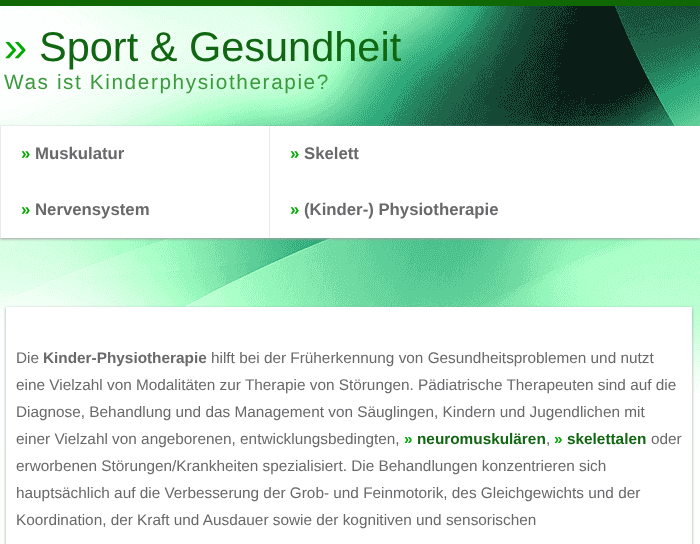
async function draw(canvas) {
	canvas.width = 700;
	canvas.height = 544;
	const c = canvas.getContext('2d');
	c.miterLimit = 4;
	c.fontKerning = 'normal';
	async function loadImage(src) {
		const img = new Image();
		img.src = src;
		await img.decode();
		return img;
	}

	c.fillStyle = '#fcfffc';
	c.fillRect(0, 0, 700, 544);
	c.drawImage(await loadImage('img1.png'), 0, 6, 700, 438);
	c.fillStyle = '#0f6804';
	c.fillRect(0, 0, 700, 6);
	c.font = '41.5px Liberation Sans';
	c.fillStyle = '#0a0';
	c.fillText('»', 4, 61);
	c.fillStyle = '#161';
	c.fillText('Sport & Gesundheit', 39, 61);
	c.letterSpacing = '1.6px';
	c.font = '20.75px Liberation Sans';
	c.fillStyle = '#3d993d';
	c.fillText('Was ist Kinderphysiotherapie?', 4, 89);
	c.fillStyle = '#9e9e9e';
	c.filter = 'blur(1.5px)';
	c.beginPath();
	c.rect(0, 127, 700, 112);
	c.fill();
	c.filter = 'none';
	c.fillStyle = '#fff';
	c.fillRect(1, 126, 699, 112);
	c.fillStyle = '#ebebeb';
	c.fillRect(0, 126, 1, 112);
	c.letterSpacing = '0px';
	c.font = 'bold 16.75px Liberation Sans';
	c.fillStyle = '#0a0';
	c.fillText('»', 21, 159);
	c.fillStyle = '#69686a';
	c.fillText('Muskulatur', 35, 159);
	c.fillStyle = '#ebebeb';
	c.fillRect(269, 126, 1, 112);
	c.fillStyle = '#0a0';
	c.fillText('»', 290, 159);
	c.fillStyle = '#69686a';
	c.fillText('Skelett', 304, 159);
	c.fillStyle = '#0a0';
	c.fillText('»', 21, 215);
	c.fillStyle = '#69686a';
	c.fillText('Nervensystem', 35, 215);
	c.fillStyle = '#0a0';
	c.fillText('»', 290, 215);
	c.fillStyle = '#69686a';
	c.fillText('(Kinder-) Physiotherapie', 304, 215);
	c.fillStyle = '#9e9e9e';
	c.filter = 'blur(1.5px)';
	c.beginPath();
	c.rect(6, 308, 686, 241);
	c.fill();
	c.filter = 'none';
	c.fillStyle = '#fff';
	c.fillRect(6, 307, 686, 237);
	c.font = '15.35px Liberation Sans';
	c.fillStyle = '#69686a';
	c.fillText('Die', 16, 363);
	c.font = 'bold 15.35px Liberation Sans';
	c.fillText('Kinder-Physiotherapie', 43, 363);
	c.font = '15.35px Liberation Sans';
	for (const [text, x, y] of [
		['hilft bei der Früherkennung von Gesundheitsproblemen und nutzt', 211, 363],
		['eine Vielzahl von Modalitäten zur Therapie von Störungen. Pädiatrische Therapeuten sind auf die', 16, 390],
		['Diagnose, Behandlung und das Management von Säuglingen, Kindern und Jugendlichen mit', 16, 417],
		['einer Vielzahl von angeborenen, entwicklungsbedingten,', 16, 444],
	]) {
		c.fillText(text, x, y);
	}
	c.font = 'bold 15.35px Liberation Sans';
	c.fillStyle = '#0a0';
	c.fillText('»', 404, 444);
	c.fillStyle = '#161';
	c.fillText('neuromuskulären', 417, 444);
	c.fillStyle = '#0a0';
	c.fillText('»', 554, 444);
	c.fillStyle = '#161';
	c.fillText('skelettalen', 567, 444);
	c.font = '15.35px Liberation Sans';
	c.fillStyle = '#69686a';
	for (const [text, x, y] of [
		['oder', 651, 444],
		[',', 546, 444],
		['erworbenen Störungen/Krankheiten spezialisiert. Die Behandlungen konzentrieren sich', 16, 471],
		['hauptsächlich auf die Verbesserung der Grob- und Feinmotorik, des Gleichgewichts und der', 16, 498],
		['Koordination, der Kraft und Ausdauer sowie der kognitiven und sensorischen', 16, 525],
	]) {
		c.fillText(text, x, y);
	}
}

draw(document.querySelector('canvas'));
